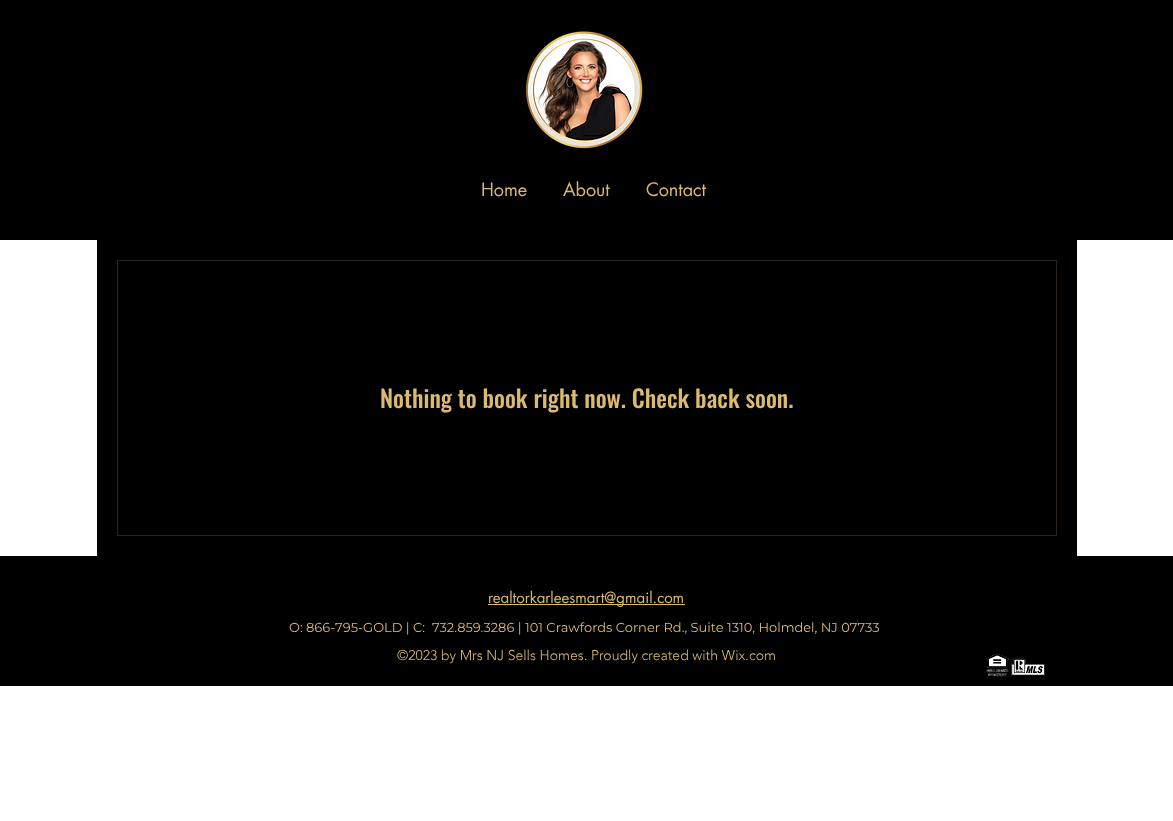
async function draw(canvas) {
	canvas.width = 1173;
	canvas.height = 821;
	const c = canvas.getContext('2d');
	c.miterLimit = 4;
	c.fontKerning = 'normal';
	async function loadImage(src) {
		const img = new Image();
		img.src = src;
		await img.decode();
		return img;
	}

	c.fillStyle = '#fff';
	c.fillRect(0, 0, 1173, 821);
	c.fillStyle = '#000';
	c.fillRect(0, 0, 1173, 240);
	c.drawImage(await loadImage('img1.png'), 525, 31, 118, 118);
	c.font = '18px futura';
	c.fillStyle = '#dbba6f';
	for (const [text, x, y] of [
		['Home', 481, 196],
		['About', 563, 196],
		['Contact', 646, 196],
	]) {
		c.fillText(text, x, y);
	}
	c.fillStyle = '#000';
	c.fillRect(97, 240, 980, 316);
	c.strokeStyle = '#2c2516';
	c.strokeRect(117.5, 260.5, 939, 275);
	c.font = '500 24px Oswald';
	c.fillStyle = '#dbba6f';
	c.fillText('Nothing to book right now. Check back soon.', 380, 408);
	c.fillStyle = '#000';
	c.fillRect(0, 556, 1173, 130);
	c.fillStyle = '#dbba6f';
	c.fillRect(488, 604, 197, 1);
	c.font = '15px futura';
	c.fillText('realtorkarleesmart@gmail.com', 488, 603);
	c.font = '13px Montserrat';
	c.fillText('O: 866-795-GOLD | C:  732.859.3286 | 101 Crawfords Corner Rd., Suite 1310, Holmdel, NJ 07733', 289, 632);
	c.font = '300 14px "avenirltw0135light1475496"';
	c.fillText('©2023 by Mrs NJ Sells Homes. Proudly created with Wix.com', 397, 660);
	c.drawImage(await loadImage('img2.png'), 986, 653, 59, 24);
}

draw(document.querySelector('canvas'));
